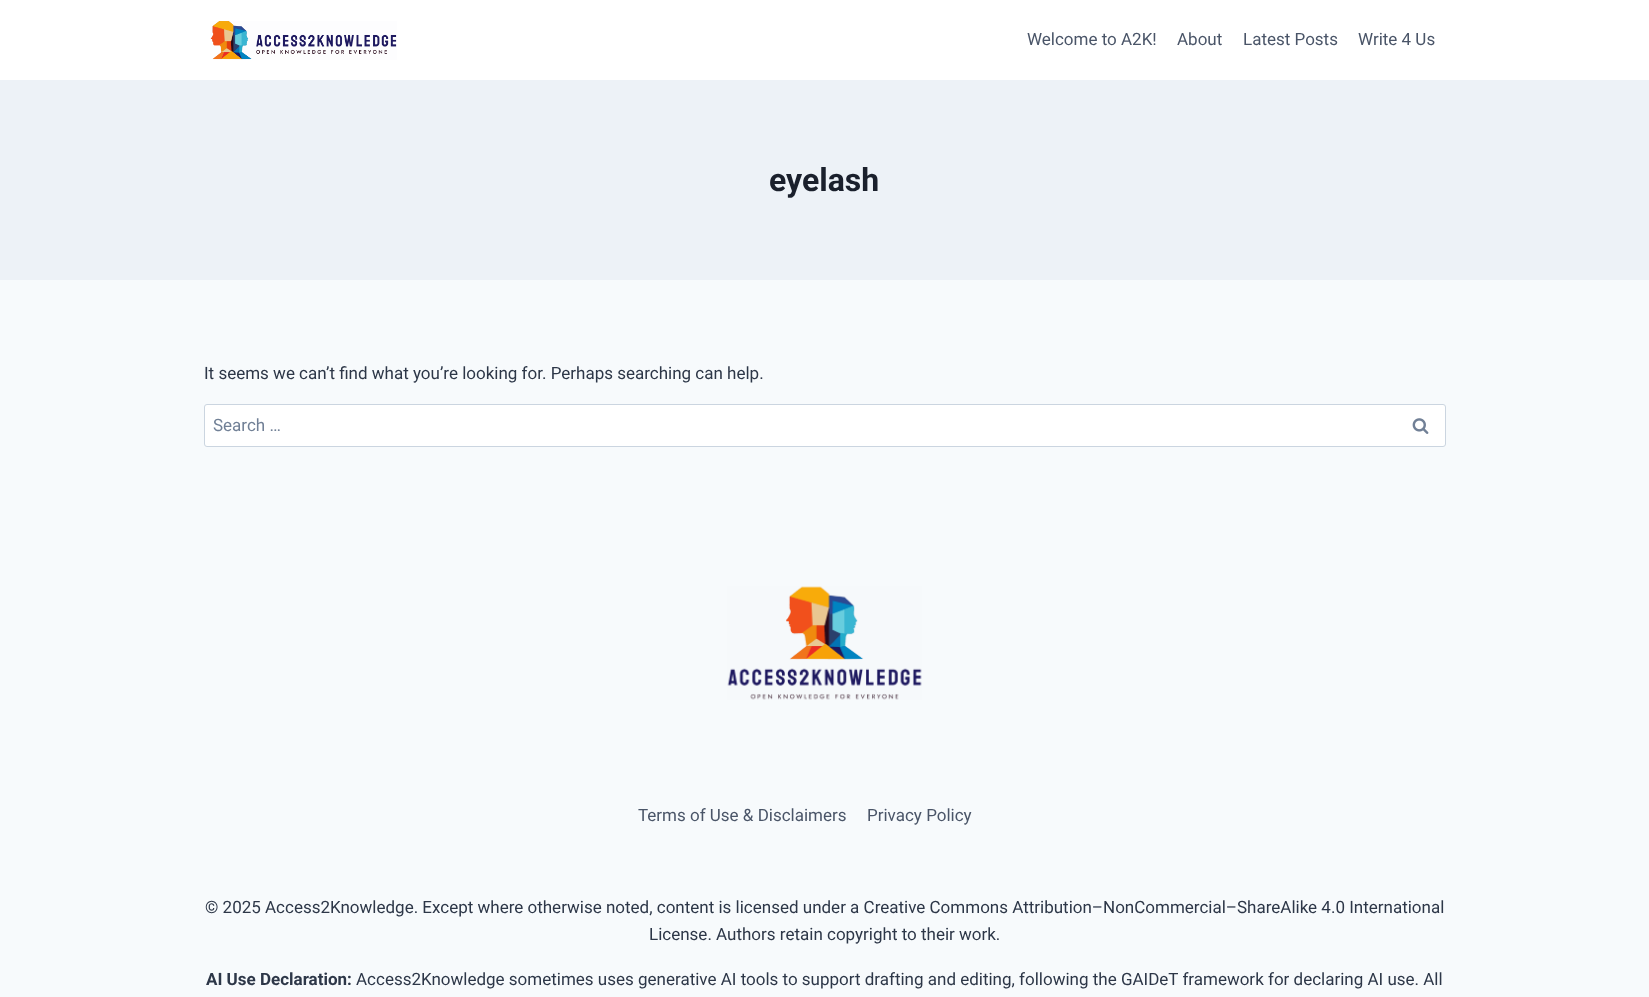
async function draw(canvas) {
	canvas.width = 1649;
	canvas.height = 997;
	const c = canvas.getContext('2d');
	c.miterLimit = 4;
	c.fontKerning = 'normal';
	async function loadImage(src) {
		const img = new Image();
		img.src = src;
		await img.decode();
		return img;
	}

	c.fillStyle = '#f7fafc';
	c.fillRect(0, 0, 1649, 997);
	c.fillStyle = '#fff';
	c.fillRect(0, 0, 1649, 80);
	c.drawImage(await loadImage('img1.png'), 210, 21, 187, 39);
	c.font = '17px Roboto';
	c.fillStyle = '#4a5568';
	for (const [text, x, y] of [
		['Welcome to A2K!', 1027, 45],
		['About', 1177, 45],
		['Latest Posts', 1243, 45],
		['Write 4 Us', 1358, 45],
	]) {
		c.fillText(text, x, y);
	}
	c.fillStyle = '#edf2f7';
	c.fillRect(0, 80, 1649, 200);
	c.font = 'bold 32px Roboto';
	c.fillStyle = '#1a202c';
	c.fillText('eyelash', 769, 191);
	c.font = '17px Roboto';
	c.fillStyle = '#2d3748';
	c.fillText('It seems we can’t find what you’re looking for. Perhaps searching can help.', 204, 379);
	c.fillStyle = '#fff';
	c.beginPath();
	c.roundRect(204.5, 404.5, 1241, 42, 2.5);
	c.fill();
	c.strokeStyle = '#cbd5e0';
	c.stroke();
	c.fillStyle = '#718096';
	c.fillText('Search …', 213, 431);
	c.drawImage(await loadImage('img2.png'), 1412, 418, 17, 16);
	c.drawImage(await loadImage('img3.png'), 727, 586, 195, 114);
	c.fillStyle = '#4a5568';
	c.fillText('Terms of Use & Disclaimers', 638, 821);
	c.fillText('Privacy Policy', 867, 821);
	c.fillStyle = '#2d3748';
	c.fillText('© 2025 Access2Knowledge. Except where otherwise noted, content is licensed under a Creative Commons Attribution–NonCommercial–ShareAlike 4.0 International', 205, 913);
	c.fillText('License. Authors retain copyright to their work.', 649, 940);
	c.font = 'bold 17px Roboto';
	c.fillText('AI Use Declaration:', 206, 985);
	c.font = '17px Roboto';
	c.fillText('Access2Knowledge sometimes uses generative AI tools to support drafting and editing, following the GAIDeT framework for declaring AI use. All', 356, 985);
}

draw(document.querySelector('canvas'));
